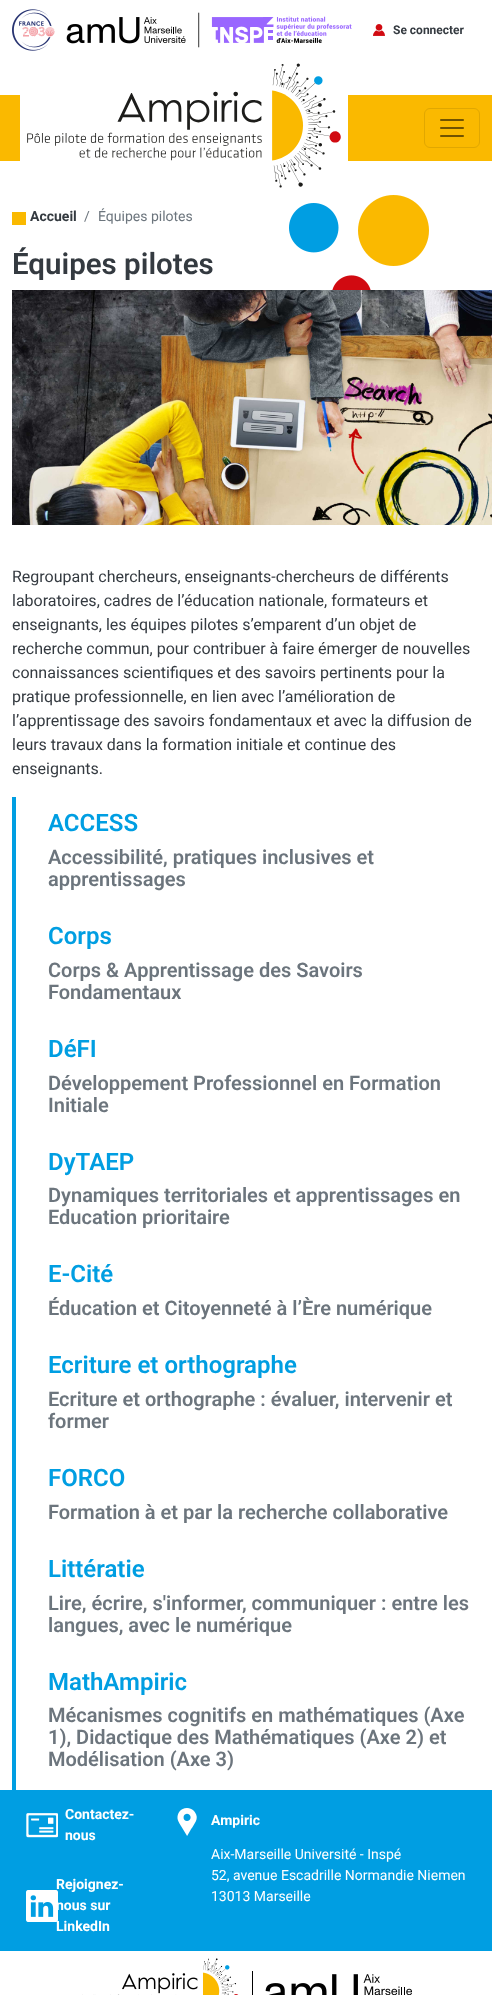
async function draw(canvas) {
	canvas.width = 492;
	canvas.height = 1995;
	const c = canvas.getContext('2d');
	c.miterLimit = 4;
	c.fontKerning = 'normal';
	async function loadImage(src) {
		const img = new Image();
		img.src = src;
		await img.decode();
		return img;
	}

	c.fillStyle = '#fff';
	c.fillRect(0, 0, 492, 1995);
	c.drawImage(await loadImage('img1.png'), 289, 195, 140, 95);
	c.drawImage(await loadImage('img2.png'), 12, 9, 340, 42);
	c.drawImage(await loadImage('img3.png'), 373, 24, 12, 12);
	c.font = 'bold 12px Roboto';
	c.fillStyle = '#343a40';
	c.fillText('Se connecter', 393, 34);
	c.fillStyle = '#fab900';
	c.fillRect(0, 95, 492, 66);
	c.fillStyle = '#fff';
	c.fillRect(20, 95, 328, 66);
	c.drawImage(await loadImage('img4.png'), 27, 63, 314, 125);
	c.beginPath();
	c.roundRect(424.5, 108.5, 55, 39, 5.5);
	c.strokeStyle = '#e1a700';
	c.stroke();
	c.drawImage(await loadImage('img5.png'), 440, 119, 24, 18);
	c.fillStyle = '#fab900';
	c.fillRect(12, 212, 14, 13);
	c.font = 'bold 14px Roboto';
	c.fillStyle = '#343a40';
	c.fillText('Accueil', 30, 221);
	c.font = '14px Roboto';
	c.fillStyle = '#6c757d';
	c.fillText('/', 84, 221);
	c.fillText('Équipes pilotes', 98, 221);
	c.font = '600 29.5px Roboto';
	c.fillStyle = '#343a40';
	c.fillText('Équipes pilotes', 12, 274);
	c.drawImage(await loadImage('img6.png'), 12, 290, 480, 235);
	c.font = '16px Roboto';
	for (const [text, x, y] of [
		['Regroupant chercheurs, enseignants-chercheurs de différents', 12, 582],
		['laboratoires, cadres de l’éducation nationale, formateurs et', 12, 606],
		['enseignants, les équipes pilotes s’emparent d’un objet de', 12, 630],
		['recherche commun, pour contribuer à faire émerger de nouvelles', 12, 654],
		['connaissances scientifiques et des savoirs pertinents pour la', 12, 678],
		['pratique professionnelle, en lien avec l’amélioration de', 12, 702],
		['l’apprentissage des savoirs fondamentaux et avec la diffusion de', 12, 726],
		['leurs travaux dans la formation initiale et continue des', 12, 750],
		['enseignants.', 12, 774],
	]) {
		c.fillText(text, x, y);
	}
	c.fillStyle = '#009ee2';
	c.fillRect(12, 797, 4, 993);
	c.font = '600 24px Roboto';
	c.fillText('ACCESS', 48, 831);
	c.font = '600 20px Roboto';
	c.fillStyle = '#6c757d';
	c.fillText('Accessibilité, pratiques inclusives et', 48, 864);
	c.fillText('apprentissages', 48, 886);
	c.font = '600 24px Roboto';
	c.fillStyle = '#009ee2';
	c.fillText('Corps', 48, 944);
	c.font = '600 20px Roboto';
	c.fillStyle = '#6c757d';
	c.fillText('Corps & Apprentissage des Savoirs', 48, 977);
	c.fillText('Fondamentaux', 48, 999);
	c.font = '600 24px Roboto';
	c.fillStyle = '#009ee2';
	c.fillText('DéFI', 48, 1057);
	c.font = '600 20px Roboto';
	c.fillStyle = '#6c757d';
	c.fillText('Développement Professionnel en Formation', 48, 1090);
	c.fillText('Initiale', 48, 1112);
	c.font = '600 24px Roboto';
	c.fillStyle = '#009ee2';
	c.fillText('DyTAEP', 48, 1170);
	c.font = '600 20px Roboto';
	c.fillStyle = '#6c757d';
	c.fillText('Dynamiques territoriales et apprentissages en', 48, 1202);
	c.fillText('Education prioritaire', 48, 1224);
	c.font = '600 24px Roboto';
	c.fillStyle = '#009ee2';
	c.fillText('E-Cité', 48, 1282);
	c.font = '600 20px Roboto';
	c.fillStyle = '#6c757d';
	c.fillText('Éducation et Citoyenneté à l’Ère numérique', 48, 1315);
	c.font = '600 24px Roboto';
	c.fillStyle = '#009ee2';
	c.fillText('Ecriture et orthographe', 48, 1373);
	c.font = '600 20px Roboto';
	c.fillStyle = '#6c757d';
	c.fillText('Ecriture et orthographe : évaluer, intervenir et', 48, 1406);
	c.fillText('former', 48, 1428);
	c.font = '600 24px Roboto';
	c.fillStyle = '#009ee2';
	c.fillText('FORCO', 48, 1486);
	c.font = '600 20px Roboto';
	c.fillStyle = '#6c757d';
	c.fillText('Formation à et par la recherche collaborative', 48, 1519);
	c.font = '600 24px Roboto';
	c.fillStyle = '#009ee2';
	c.fillText('Littératie', 48, 1577);
	c.font = '600 20px Roboto';
	c.fillStyle = '#6c757d';
	c.fillText('Lire, écrire, s\'informer, communiquer : entre les', 48, 1610);
	c.fillText('langues, avec le numérique', 48, 1632);
	c.font = '600 24px Roboto';
	c.fillStyle = '#009ee2';
	c.fillText('MathAmpiric', 48, 1690);
	c.font = '600 20px Roboto';
	c.fillStyle = '#6c757d';
	for (const [text, x, y] of [
		['Mécanismes cognitifs en mathématiques (Axe', 48, 1722],
		['1), Didactique des Mathématiques (Axe 2) et', 48, 1744],
		['Modélisation (Axe 3)', 48, 1766],
	]) {
		c.fillText(text, x, y);
	}
	c.fillStyle = '#009ee2';
	c.fillRect(0, 1790, 492, 161);
	c.drawImage(await loadImage('img7.png'), 26, 1813, 32, 25);
	c.font = 'bold 14px Roboto';
	c.fillStyle = '#fff';
	for (const [text, x, y] of [
		['Contactez-', 65, 1819],
		['nous', 65, 1840],
		['Rejoignez-', 56, 1889],
		['nous sur', 56, 1910],
		['LinkedIn', 56, 1931],
	]) {
		c.fillText(text, x, y);
	}
	c.drawImage(await loadImage('img8.png'), 26, 1890, 32, 32);
	c.drawImage(await loadImage('img9.png'), 177, 1808, 20, 28);
	c.fillText('Ampiric', 211, 1825);
	c.font = '14px Roboto';
	for (const [text, x, y] of [
		['Aix-Marseille Université - Inspé', 211, 1859],
		['52, avenue Escadrille Normandie Niemen', 211, 1880],
		['13013 Marseille', 211, 1901],
	]) {
		c.fillText(text, x, y);
	}
	c.drawImage(await loadImage('img10.png'), 82, 1958, 330, 37);
}

draw(document.querySelector('canvas'));
